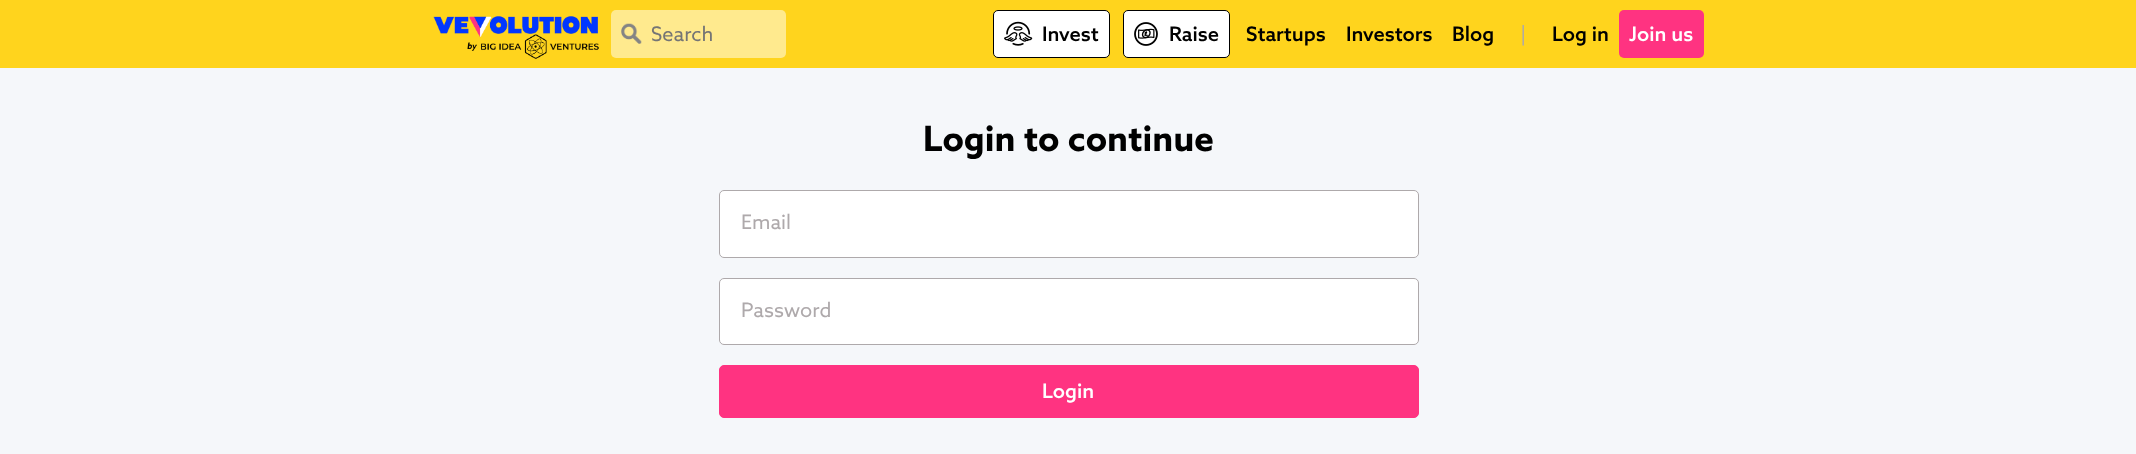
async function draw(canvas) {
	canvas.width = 2136;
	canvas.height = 454;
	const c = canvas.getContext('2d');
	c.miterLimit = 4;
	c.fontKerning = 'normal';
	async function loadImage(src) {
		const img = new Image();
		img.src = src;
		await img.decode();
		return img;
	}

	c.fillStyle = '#f5f7fa';
	c.fillRect(0, 0, 2136, 454);
	c.fillStyle = '#ffd41d';
	c.fillRect(0, 0, 2136, 68);
	c.drawImage(await loadImage('img1.png'), 433, 16, 166, 43);
	c.fillStyle = '#ffea8e';
	c.beginPath();
	c.roundRect(611, 10, 175, 48, 5);
	c.fill();
	c.drawImage(await loadImage('img2.png'), 621, 23, 21, 21);
	c.font = '20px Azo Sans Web';
	c.fillStyle = '#757575';
	c.fillText('Search', 651, 41);
	c.fillStyle = '#fff';
	c.beginPath();
	c.roundRect(993.5, 10.5, 116, 47, 4.5);
	c.fill();
	c.strokeStyle = '#000';
	c.stroke();
	c.drawImage(await loadImage('img3.png'), 1004, 21, 29, 25);
	c.font = '500 20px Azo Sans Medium';
	c.fillStyle = '#000';
	c.fillText('Invest', 1042, 41);
	c.fillStyle = '#fff';
	c.beginPath();
	c.roundRect(1123.5, 10.5, 106, 47, 4.5);
	c.fill();
	c.stroke();
	c.drawImage(await loadImage('img4.png'), 1134, 22, 24, 24);
	c.fillStyle = '#000';
	for (const [text, x, y] of [
		['Raise', 1169, 41],
		['Startups', 1246, 41],
		['Investors', 1346, 41],
		['Blog', 1452, 41],
	]) {
		c.fillText(text, x, y);
	}
	c.font = '20px Azo Sans Web';
	c.fillStyle = '#aea9ab';
	c.fillText('|', 1520, 41);
	c.font = '500 20px Azo Sans Medium';
	c.fillStyle = '#000';
	c.fillText('Log in', 1552, 41);
	c.fillStyle = '#ff3381';
	c.beginPath();
	c.roundRect(1619, 10, 85, 48, 5);
	c.fill();
	c.fillStyle = '#fff';
	c.fillText('Join us', 1629, 41);
	c.font = 'bold 35px Azo Sans Web';
	c.fillStyle = '#000';
	c.fillText('Login to continue', 923, 151);
	c.fillStyle = '#fff';
	c.beginPath();
	c.roundRect(719.5, 190.5, 699, 67, 4.5);
	c.fill();
	c.strokeStyle = '#aea9ab';
	c.stroke();
	c.font = '20px Azo Sans Web';
	c.fillStyle = '#aea9ab';
	c.fillText('Email', 741, 229);
	c.fillStyle = '#fff';
	c.beginPath();
	c.roundRect(719.5, 278.5, 699, 66, 4.5);
	c.fill();
	c.stroke();
	c.fillStyle = '#aea9ab';
	c.fillText('Password', 741, 317);
	c.fillStyle = '#ff3381';
	c.beginPath();
	c.roundRect(719.5, 365.5, 699, 52, 4.5);
	c.fill();
	c.strokeStyle = '#ff3381';
	c.stroke();
	c.font = '500 20px Azo Sans Medium';
	c.fillStyle = '#fff';
	c.fillText('Login', 1042, 398);
}

draw(document.querySelector('canvas'));
